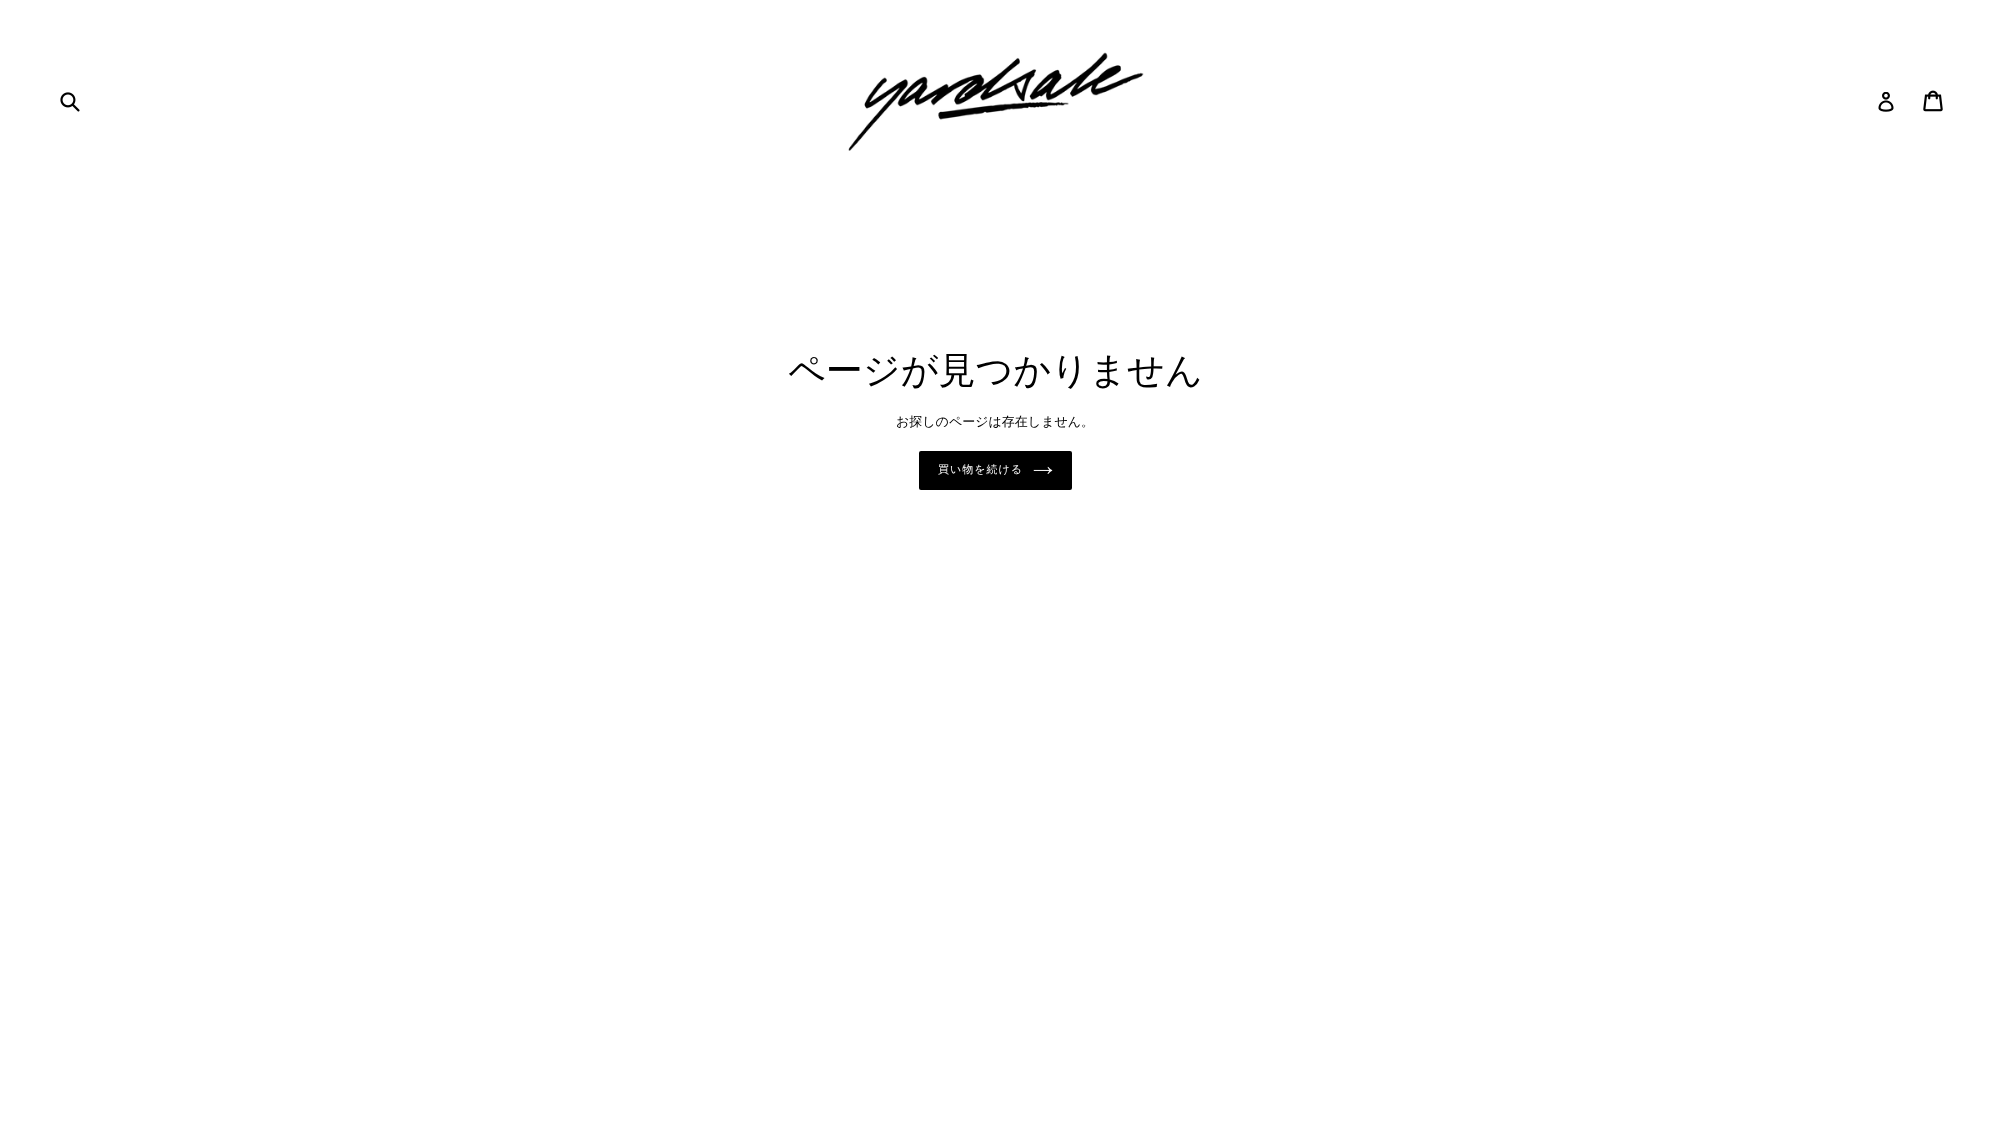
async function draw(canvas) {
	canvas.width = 1991;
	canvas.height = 1144;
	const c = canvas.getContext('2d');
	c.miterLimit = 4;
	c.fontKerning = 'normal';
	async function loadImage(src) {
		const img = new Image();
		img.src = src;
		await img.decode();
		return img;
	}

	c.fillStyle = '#fff';
	c.fillRect(0, 0, 1991, 1144);
	c.drawImage(await loadImage('img1.png'), 60, 92, 20, 20);
	c.drawImage(await loadImage('img2.png'), 848, 52, 296, 99);
	c.drawImage(await loadImage('img3.png'), 1878, 92, 16, 20);
	c.drawImage(await loadImage('img4.png'), 1923, 90, 20, 22);
	c.font = '500 37px WenQuanYi Zen Hei';
	c.fillStyle = '#000';
	c.fillText('ページが見つかりません', 788, 383);
	c.font = '500 13px WenQuanYi Zen Hei';
	c.fillText('お探しのページは存在しません。', 896, 426);
	c.beginPath();
	c.roundRect(919, 451, 153, 39, 2);
	c.fill();
	c.letterSpacing = '1px';
	c.font = '500 11px WenQuanYi Zen Hei';
	c.fillStyle = '#fff';
	c.fillText('買い物を続ける', 938, 473);
	c.drawImage(await loadImage('img5.png'), 1033, 466, 20, 8);
}

draw(document.querySelector('canvas'));
